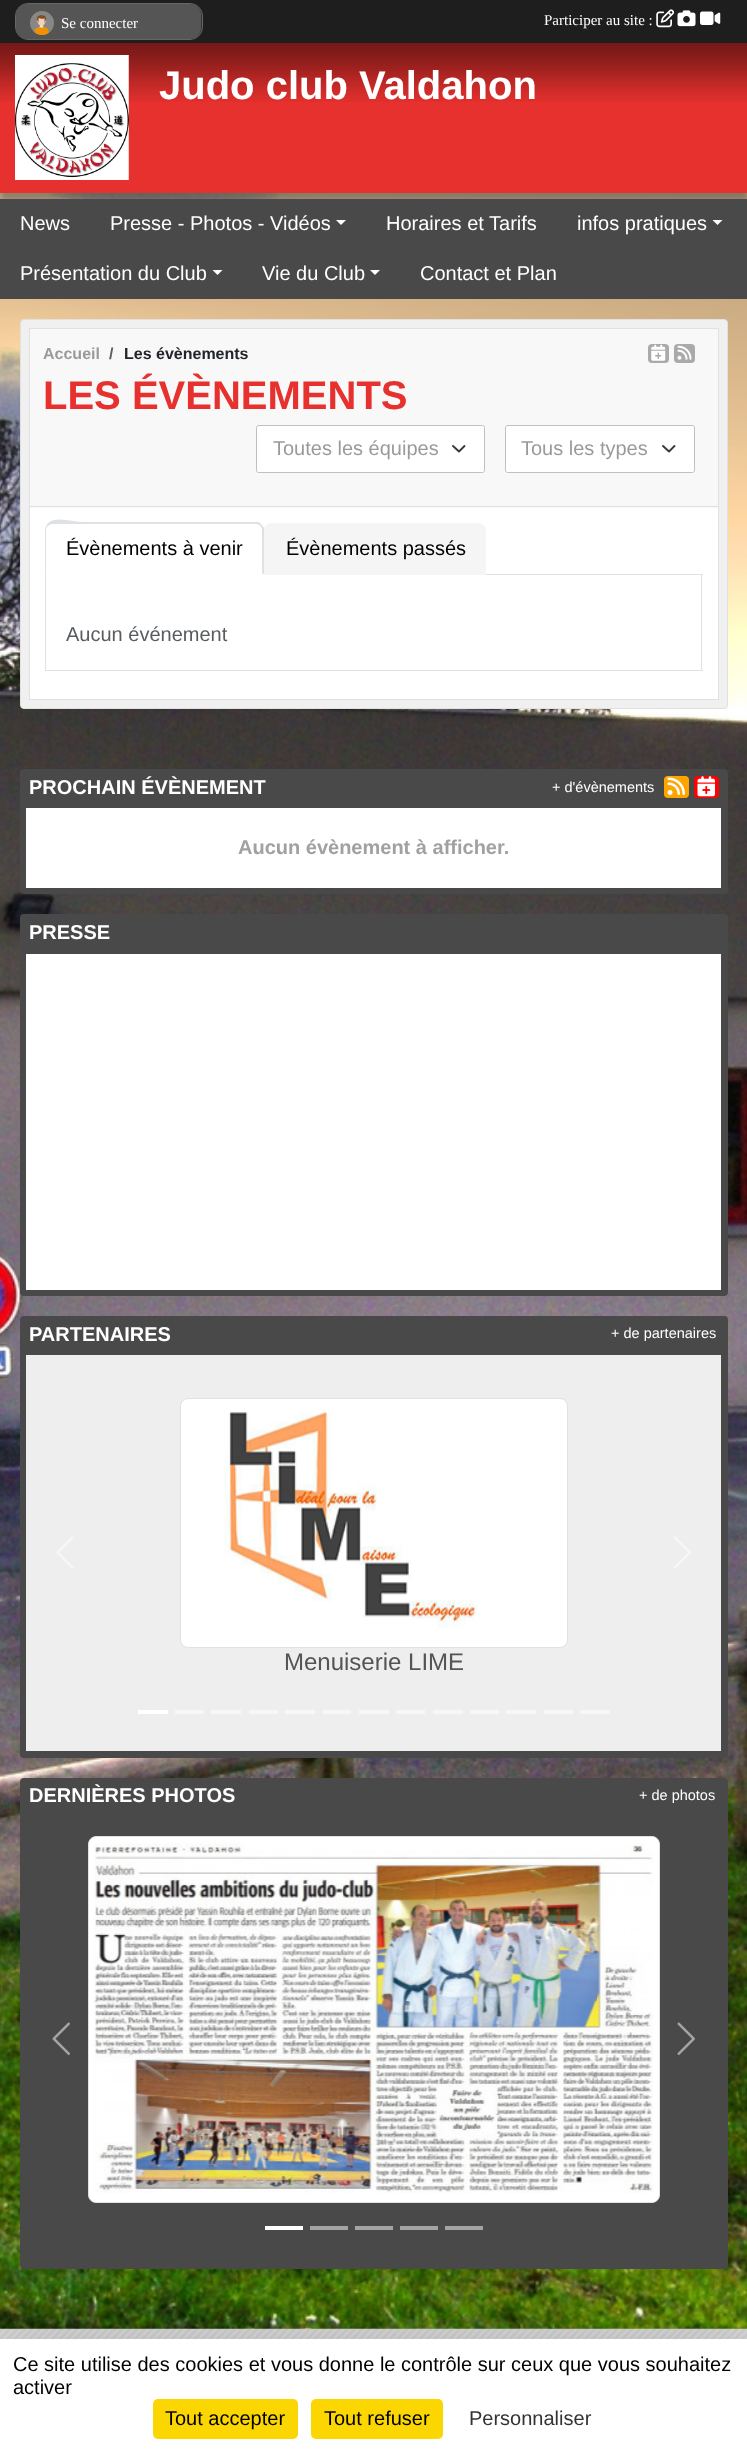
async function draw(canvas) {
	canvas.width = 747;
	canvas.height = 2451;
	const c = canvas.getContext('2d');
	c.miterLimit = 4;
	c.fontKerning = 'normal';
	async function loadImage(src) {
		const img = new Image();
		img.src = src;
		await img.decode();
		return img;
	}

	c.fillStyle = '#fff';
	c.fillRect(0, 0, 747, 2451);
	c.drawImage(await loadImage('img1.png'), 0, 193, 747, 2136);
	c.fillStyle = '#50505080';
	c.filter = 'blur(3px)';
	c.beginPath();
	c.rect(0, 51, 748, 150);
	c.fill();
	c.filter = 'none';
	c.fillStyle = '#1e1e1e';
	c.fillRect(0, 0, 747, 43);
	c.fillStyle = '#333';
	c.beginPath();
	c.roundRect(15.5, 3.5, 187, 36, 12.5);
	c.fill();
	c.strokeStyle = '#666';
	c.stroke();
	c.fillStyle = '#555';
	c.beginPath();
	c.roundRect(16, 4, 185, 35, 11);
	c.fill();
	c.drawImage(await loadImage('img2.png'), 30, 11, 24, 24);
	c.font = '15px Liberation Serif';
	c.fillStyle = '#fff';
	c.fillText('Se connecter', 61, 28);
	c.fillText('Participer au site :', 544, 25);
	c.drawImage(await loadImage('img3.png'), 656, 9, 19, 19);
	c.drawImage(await loadImage('img4.png'), 677, 10, 19, 17);
	c.drawImage(await loadImage('img5.png'), 700, 11, 21, 14);
	c.fillStyle = '#e6312e';
	c.fillRect(0, 43, 747, 150);
	c.drawImage(await loadImage('img6.png'), 0, 43, 747, 59);
	c.drawImage(await loadImage('img7.png'), 15, 55, 114, 125);
	c.font = 'bold 40px Liberation Sans';
	c.fillStyle = '#fff';
	c.fillText('Judo club Valdahon', 159, 99);
	c.fillStyle = '#494949';
	c.fillRect(0, 199, 747, 100);
	c.font = '20px Liberation Sans';
	c.fillStyle = '#fff';
	c.fillText('News', 20, 230);
	c.fillText('Presse - Photos - Vidéos', 110, 230);
	c.beginPath();
	c.moveTo(336, 220);
	c.lineTo(346, 220);
	c.lineTo(341, 225);
	c.closePath();
	c.fill();
	c.fillText('Horaires et Tarifs', 386, 230);
	c.fillText('infos pratiques', 577, 230);
	c.beginPath();
	c.moveTo(712.5, 220);
	c.lineTo(722.5, 220);
	c.lineTo(717.5, 225);
	c.closePath();
	c.fill();
	c.fillText('Présentation du Club', 20, 280);
	c.beginPath();
	c.moveTo(212.5, 270);
	c.lineTo(222.5, 270);
	c.lineTo(217.5, 275);
	c.closePath();
	c.fill();
	c.fillText('Vie du Club', 262, 280);
	c.beginPath();
	c.moveTo(370, 270);
	c.lineTo(380, 270);
	c.lineTo(375, 275);
	c.closePath();
	c.fill();
	c.fillText('Contact et Plan', 420, 280);
	c.fillStyle = '#f0f0f0';
	c.beginPath();
	c.roundRect(20.5, 319.5, 707, 389, 3.5);
	c.fill();
	c.strokeStyle = '#e1e1e1';
	c.stroke();
	c.fillStyle = '#fff';
	c.fillRect(30, 508, 688, 191);
	c.strokeRect(29.5, 328.5, 689, 371);
	c.fillStyle = '#f8f8f8';
	c.fillRect(30, 329, 688, 179);
	c.fillStyle = '#e1e1e1';
	c.fillRect(30, 506, 688, 1);
	c.font = 'bold 16px Liberation Sans';
	c.fillStyle = '#9a9a9a';
	c.fillText('Accueil', 43, 359);
	c.fillStyle = '#595c5f';
	c.fillText('/', 109, 359);
	c.fillStyle = '#212529';
	c.fillText('Les évènements', 124, 359);
	c.fillStyle = '#aaa';
	c.beginPath();
	c.roundRect(648, 344, 21, 19, 4);
	c.fill();
	c.drawImage(await loadImage('img8.png'), 651, 344, 15, 17);
	c.beginPath();
	c.roundRect(674, 344, 21, 19, 4);
	c.fill();
	c.drawImage(await loadImage('img9.png'), 677, 345, 15, 15);
	c.font = 'bold 40px Liberation Sans';
	c.fillStyle = '#e6312e';
	c.fillText('LES ÉVÈNEMENTS', 43, 409);
	c.fillStyle = '#fff';
	c.beginPath();
	c.roundRect(256, 425, 229, 48, 2.5);
	c.fill();
	c.beginPath();
	c.moveTo(453, 446);
	c.lineTo(459, 451.5);
	c.lineTo(464.5, 446);
	c.strokeStyle = '#343a40';
	c.lineWidth = 1.9;
	c.lineCap = 'round';
	c.lineJoin = 'round';
	c.stroke();
	c.beginPath();
	c.roundRect(256.5, 425.5, 228, 47, 2);
	c.strokeStyle = '#c0c0c0';
	c.lineWidth = 1;
	c.lineJoin = 'miter';
	c.stroke();
	c.font = '20px Liberation Sans';
	c.fillStyle = '#9a9a9a';
	c.fillText('Toutes les équipes', 273, 455);
	c.fillStyle = '#fff';
	c.beginPath();
	c.roundRect(505, 425, 190, 48, 2.5);
	c.fill();
	c.beginPath();
	c.moveTo(663, 446);
	c.lineTo(669, 451.5);
	c.lineTo(674.5, 446);
	c.strokeStyle = '#343a40';
	c.lineWidth = 1.9;
	c.lineJoin = 'round';
	c.stroke();
	c.beginPath();
	c.roundRect(505.5, 425.5, 189, 47, 2);
	c.strokeStyle = '#c0c0c0';
	c.lineWidth = 1;
	c.lineJoin = 'miter';
	c.stroke();
	c.fillStyle = '#9a9a9a';
	c.fillText('Tous les types', 521, 455);
	c.fillStyle = '#dee2e6';
	c.fillRect(486, 574, 217, 1);
	c.beginPath();
	c.moveTo(52, 524);
	c.bezierCurveTo(51, 524, 49, 525, 48, 526);
	c.lineTo(47, 524);
	c.bezierCurveTo(55, 515, 72, 522, 84, 522);
	c.lineTo(259, 522);
	c.lineTo(262, 525);
	c.lineTo(260, 526);
	c.bezierCurveTo(259, 525, 258, 524, 256, 524);
	c.closePath();
	c.fill();
	c.beginPath();
	c.moveTo(264, 528);
	c.lineTo(264, 575);
	c.lineTo(262, 573);
	c.lineTo(262, 530);
	c.bezierCurveTo(262, 528, 261, 527, 260, 526);
	c.lineTo(262, 525);
	c.closePath();
	c.fill();
	c.fillStyle = '#fff';
	c.beginPath();
	c.moveTo(264, 575);
	c.lineTo(262, 573);
	c.lineTo(262, 574);
	c.lineTo(46, 574);
	c.lineTo(45, 575);
	c.closePath();
	c.fill();
	c.fillStyle = '#dee2e6';
	c.beginPath();
	c.moveTo(45, 575);
	c.lineTo(46, 574);
	c.lineTo(46, 530);
	c.bezierCurveTo(46, 528, 47, 527, 48, 526);
	c.lineTo(47, 524);
	c.bezierCurveTo(46, 526, 45, 528, 45, 530);
	c.closePath();
	c.fill();
	c.fillStyle = '#000';
	c.fillText('Évènements à venir', 66, 555);
	c.fillStyle = '#f5f5f5';
	c.beginPath();
	c.roundRect(264, 523, 222, 52, [8, 8, 0, 0]);
	c.fill();
	c.fillStyle = '#000';
	c.fillText('Évènements passés', 286, 555);
	for (const [x, y, w, h, color] of [
		[701, 575, 1, 96, '#dee2e6'],
		[45, 670, 658, 1, '#dee2e6'],
		[45, 575, 1, 96, '#dee2e6'],
	]) {
		c.fillStyle = color;
		c.fillRect(x, y, w, h);
	}
	c.fillStyle = '#595c5f';
	c.fillText('Aucun événement', 66, 641);
	c.fillStyle = '#494949';
	c.beginPath();
	c.roundRect(20, 769, 708, 125, 4);
	c.fill();
	c.font = 'bold 20px Liberation Sans';
	c.fillStyle = '#fff';
	c.fillText('PROCHAIN ÉVÈNEMENT', 29, 794);
	c.font = '14.5px Liberation Sans';
	c.fillText('+ d\'évènements', 552, 792);
	c.fillStyle = '#ffa500';
	c.beginPath();
	c.roundRect(664, 776, 25, 22, 4);
	c.fill();
	c.drawImage(await loadImage('img10.png'), 667, 777, 18, 18);
	c.fillStyle = '#f00';
	c.beginPath();
	c.roundRect(694, 776, 25, 22, 4);
	c.fill();
	c.drawImage(await loadImage('img11.png'), 697, 776, 18, 21);
	c.fillStyle = '#fff';
	c.fillRect(26, 808, 695, 80);
	c.font = 'bold 20px Liberation Sans';
	c.fillStyle = '#a1a1a1';
	c.fillText('Aucun évènement à afficher.', 238, 854);
	c.fillStyle = '#494949';
	c.beginPath();
	c.roundRect(20, 914, 708, 382, 4);
	c.fill();
	c.fillStyle = '#fff';
	c.fillText('PRESSE', 29, 939);
	c.fillRect(26, 954, 695, 336);
	c.fillStyle = '#494949';
	c.beginPath();
	c.roundRect(20, 1316, 708, 442, 4);
	c.fill();
	c.fillStyle = '#fff';
	c.fillText('PARTENAIRES', 29, 1341);
	c.fillStyle = '#eee';
	c.fillRect(26, 1355, 695, 396);
	c.font = '14.5px Liberation Sans';
	c.fillStyle = '#fff';
	c.fillText('+ de partenaires', 611, 1338);
	c.drawImage(await loadImage('img12.png'), 56, 1536, 18, 33);
	c.drawImage(await loadImage('img13.png'), 674, 1536, 17, 33);
	c.beginPath();
	c.roundRect(180.5, 1398.5, 387, 249, 7.5);
	c.fill();
	c.strokeStyle = '#dee2e6';
	c.stroke();
	c.drawImage(await loadImage('img14.png'), 224, 1412, 254, 216);
	c.font = '24px Liberation Sans';
	c.fillStyle = '#555';
	c.fillText('Menuiserie LIME', 284, 1670);
	for (const [x, y, w, h, color] of [
		[138, 1710, 30, 4, '#fff'],
		[175, 1710, 29, 4, '#f7f7f7'],
		[211, 1710, 30, 4, '#f7f7f7'],
		[249, 1710, 29, 4, '#f7f7f7'],
		[285, 1710, 30, 4, '#f7f7f7'],
		[323, 1710, 28, 4, '#f7f7f7'],
		[359, 1710, 30, 4, '#f7f7f7'],
		[396, 1710, 29, 4, '#f7f7f7'],
		[433, 1710, 30, 4, '#f7f7f7'],
		[470, 1710, 29, 4, '#f7f7f7'],
		[506, 1710, 30, 4, '#f7f7f7'],
		[544, 1710, 29, 4, '#f7f7f7'],
		[580, 1710, 30, 4, '#f7f7f7'],
	]) {
		c.fillStyle = color;
		c.fillRect(x, y, w, h);
	}
	c.fillStyle = '#494949';
	c.beginPath();
	c.roundRect(20, 1778, 708, 491, 4);
	c.fill();
	c.font = 'bold 20px Liberation Sans';
	c.fillStyle = '#fff';
	c.fillText('DERNIÈRES PHOTOS', 29, 1802);
	c.font = '14.5px Liberation Sans';
	c.fillText('+ de photos', 639, 1800);
	c.drawImage(await loadImage('img15.png'), 52, 2022, 18, 33);
	c.beginPath();
	c.roundRect(88.5, 1836.5, 571, 366, 7.5);
	c.fill();
	c.stroke();
	c.drawImage(await loadImage('img16.png'), 94, 1843, 560, 350);
	c.drawImage(await loadImage('img17.png'), 677, 2022, 18, 33);
	for (const [x, y, w, h, color] of [
		[265, 2226, 38, 4, '#fff'],
		[310, 2226, 38, 4, '#a4a4a4'],
		[355, 2226, 38, 4, '#a4a4a4'],
		[400, 2226, 38, 4, '#a4a4a4'],
		[445, 2226, 38, 4, '#a4a4a4'],
	]) {
		c.fillStyle = color;
		c.fillRect(x, y, w, h);
	}
	c.drawImage(await loadImage('img18.png'), 0, 2328, 747, 11);
	c.fillStyle = '#00000040';
	c.filter = 'blur(37.5px)';
	c.beginPath();
	c.rect(0, 2364, 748, 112);
	c.fill();
	c.filter = 'none';
	c.fillStyle = '#fff';
	c.fillRect(0, 2339, 747, 112);
	c.font = '20px Liberation Sans';
	c.fillStyle = '#000';
	c.fillText('Ce site utilise des cookies et vous donne le contrôle sur ceux que vous souhaitez', 13, 2371);
	c.fillText('activer', 13, 2394);
	c.fillStyle = '#fbd600';
	c.beginPath();
	c.roundRect(153, 2399, 145, 40, 5);
	c.fill();
	c.fillStyle = '#000';
	c.fillText('Tout accepter', 165, 2425);
	c.fillStyle = '#fbd600';
	c.beginPath();
	c.roundRect(311, 2399, 132, 40, 5);
	c.fill();
	c.fillStyle = '#000';
	c.fillText('Tout refuser', 324, 2425);
	c.fillStyle = '#333';
	c.fillText('Personnaliser', 469, 2425);
}

draw(document.querySelector('canvas'));
